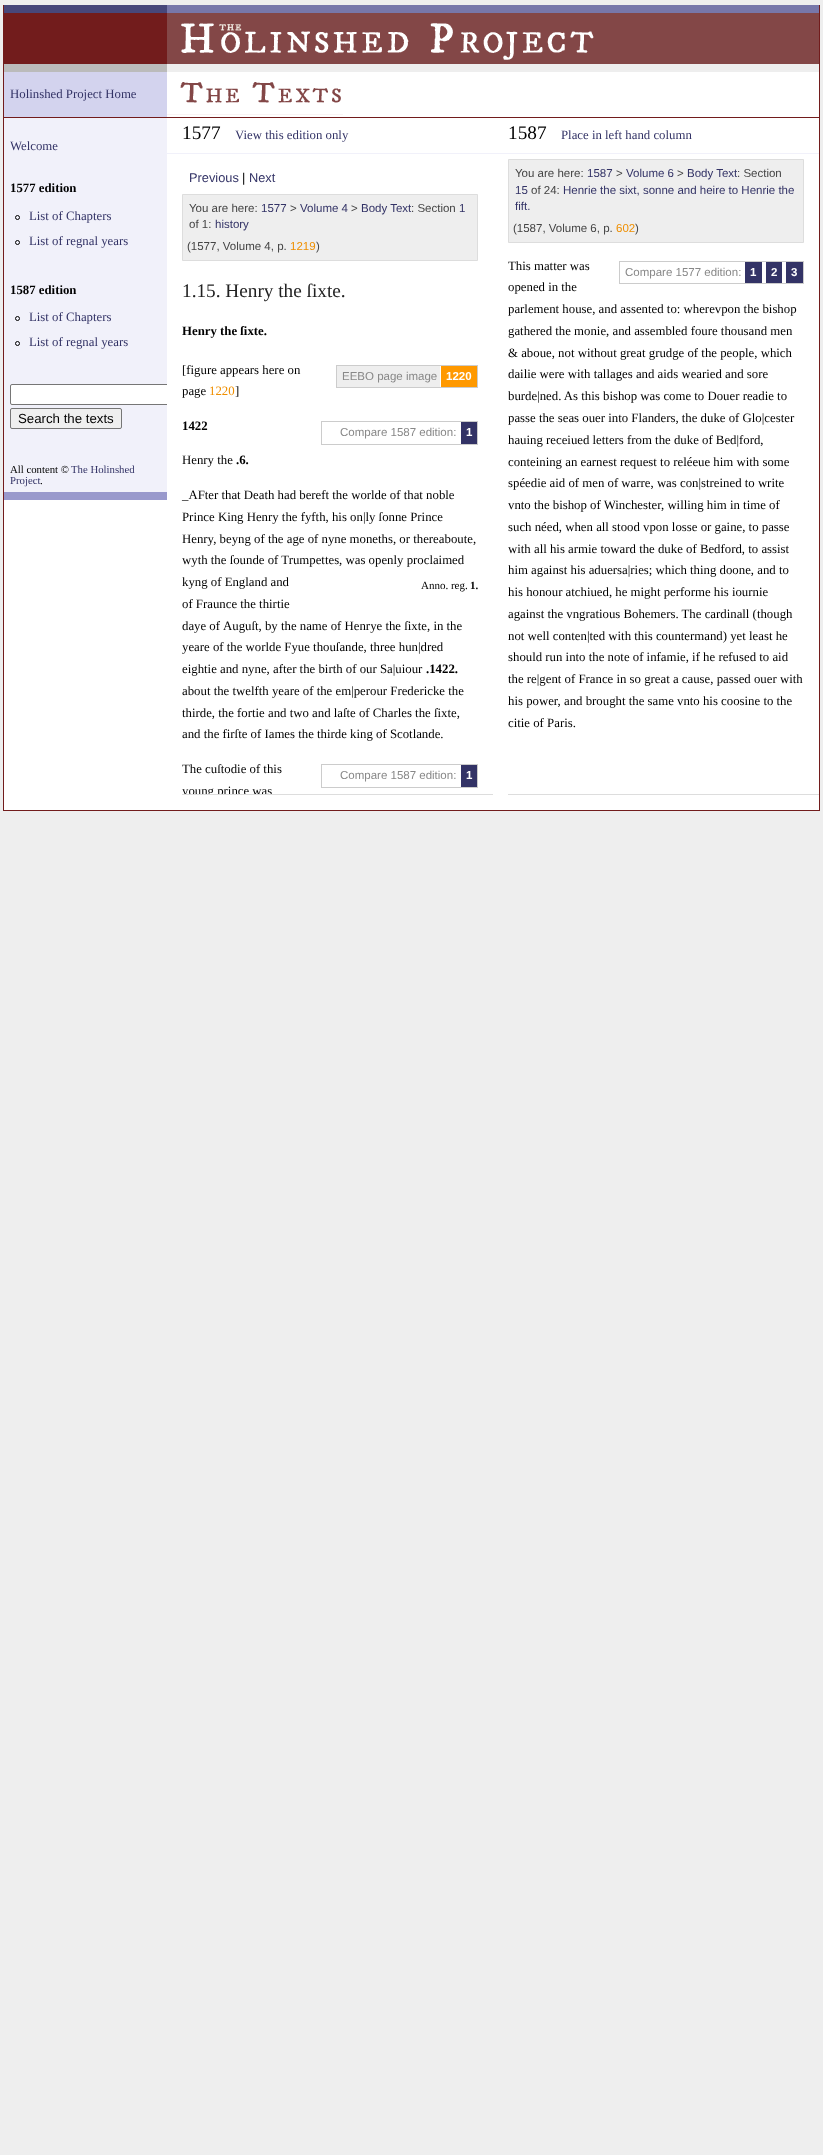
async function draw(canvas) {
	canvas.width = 823;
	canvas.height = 2155;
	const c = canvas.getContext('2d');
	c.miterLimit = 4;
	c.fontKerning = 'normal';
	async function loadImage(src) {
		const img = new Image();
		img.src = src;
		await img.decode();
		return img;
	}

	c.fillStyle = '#eee';
	c.fillRect(0, 0, 823, 2155);
	for (const [x, y, w, h, color] of [
		[4, 72, 815, 738, '#fff'],
		[819, 5, 1, 806, '#721c1c'],
		[3, 810, 817, 1, '#721c1c'],
		[3, 5, 1, 806, '#721c1c'],
		[4, 5, 163, 8, '#47477a'],
		[167, 5, 652, 8, '#77a'],
		[4, 13, 163, 51, '#721c1c'],
		[167, 13, 652, 51, '#834747'],
	]) {
		c.fillStyle = color;
		c.fillRect(x, y, w, h);
	}
	c.drawImage(await loadImage('img1.png'), 181, 23, 413, 37);
	for (const [x, y, w, h, color] of [
		[4, 64, 163, 8, '#bbb'],
		[4, 72, 163, 45, '#d3d3ee'],
		[4, 117, 815, 1, '#721c1c'],
	]) {
		c.fillStyle = color;
		c.fillRect(x, y, w, h);
	}
	c.font = '12.8px Liberation Serif';
	c.fillStyle = '#336';
	c.fillText('Holinshed Project Home', 10, 98);
	c.drawImage(await loadImage('img2.png'), 167, 82, 176, 33);
	c.fillStyle = '#f1f1fa';
	c.fillRect(4, 118, 163, 374);
	c.fillStyle = '#99c';
	c.fillRect(4, 492, 163, 8);
	c.fillStyle = '#336';
	c.fillText('Welcome', 10, 150);
	c.font = 'bold 12.8px Liberation Serif';
	c.fillStyle = '#000';
	c.fillText('1577 edition', 10, 192);
	c.beginPath();
	c.arc(17.5, 217.5, 2, 0, 2 * Math.PI);
	c.strokeStyle = '#000';
	c.stroke();
	c.font = '12.8px Liberation Serif';
	c.fillStyle = '#336';
	c.fillText('List of Chapters', 29, 220);
	c.beginPath();
	c.arc(17.5, 242.5, 2, 0, 2 * Math.PI);
	c.stroke();
	c.fillText('List of regnal years', 29, 245);
	c.font = 'bold 12.8px Liberation Serif';
	c.fillStyle = '#000';
	c.fillText('1587 edition', 10, 294);
	c.beginPath();
	c.arc(17.5, 318.5, 2, 0, 2 * Math.PI);
	c.stroke();
	c.font = '12.8px Liberation Serif';
	c.fillStyle = '#336';
	c.fillText('List of Chapters', 29, 321);
	c.beginPath();
	c.arc(17.5, 343.5, 2, 0, 2 * Math.PI);
	c.stroke();
	c.fillText('List of regnal years', 29, 346);
	c.fillStyle = '#fff';
	c.beginPath();
	c.roundRect(10.5, 384.5, 168, 20, 1.5);
	c.fill();
	c.strokeStyle = '#767676';
	c.stroke();
	c.fillStyle = '#efefef';
	c.beginPath();
	c.roundRect(10.5, 408.5, 111, 20, 1.5);
	c.fill();
	c.stroke();
	c.font = '13.25px Liberation Sans';
	c.fillStyle = '#000';
	c.fillText('Search the texts', 18, 423);
	c.font = '10.75px Liberation Serif';
	c.fillText('All content ©', 10, 473);
	c.fillStyle = '#336';
	c.fillText('The Holinshed', 71, 473);
	c.fillText('Project', 10, 484);
	c.fillStyle = '#000';
	c.fillText('.', 40, 484);
	c.fillStyle = '#fff';
	c.fillRect(167, 384, 12, 21);
	c.fillStyle = '#f1f1fa';
	c.fillRect(167, 153, 652, 1);
	c.font = '19.25px Liberation Serif';
	c.fillStyle = '#000';
	c.fillText('1577', 182, 139);
	c.font = '12.8px Liberation Serif';
	c.fillStyle = '#336';
	c.fillText('View this edition only', 235, 139);
	c.fillStyle = '#ddd';
	c.fillRect(182, 794, 311, 1);
	c.font = '12.8px Liberation Sans';
	c.fillStyle = '#336';
	c.fillText('Previous', 189, 182);
	c.fillStyle = '#000';
	c.fillText('|', 242, 182);
	c.fillStyle = '#336';
	c.fillText('Next', 249, 182);
	c.fillStyle = '#eee';
	c.beginPath();
	c.rect(182.5, 194.5, 295, 66);
	c.fill();
	c.strokeStyle = '#ddd';
	c.stroke();
	c.font = '11.5px Liberation Sans';
	c.fillStyle = '#444';
	c.fillText('You are here:', 189, 212);
	c.fillStyle = '#336';
	c.fillText('1577', 261, 212);
	c.fillStyle = '#444';
	c.fillText('>', 290, 212);
	c.fillStyle = '#336';
	c.fillText('Volume 4', 300, 212);
	c.fillStyle = '#444';
	c.fillText('>', 351, 212);
	c.fillStyle = '#336';
	c.fillText('Body Text', 361, 212);
	c.fillStyle = '#444';
	c.fillText(': Section', 411, 212);
	c.fillStyle = '#336';
	c.fillText('1', 459, 212);
	c.fillStyle = '#444';
	c.fillText('of 1:', 189, 228);
	c.fillStyle = '#336';
	c.fillText('history', 215, 228);
	c.fillStyle = '#444';
	c.fillText('(1577, Volume 4, p.', 187, 250);
	c.fillStyle = '#ef8f00';
	c.fillText('1219', 290, 250);
	c.fillStyle = '#444';
	c.fillText(')', 316, 250);
	c.font = '19.25px Liberation Serif';
	c.fillStyle = '#222';
	c.fillText('1.15. Henry the ſixte.', 182, 297);
	c.font = 'bold 12.8px Liberation Serif';
	c.fillStyle = '#000';
	c.fillText('Henry the ſixte.', 182, 335);
	c.font = '12.8px Liberation Serif';
	c.fillText('[figure appears here on', 182, 374);
	c.fillText('page', 182, 395);
	c.fillStyle = '#ef8f00';
	c.fillText('1220', 209, 395);
	c.fillStyle = '#000';
	c.fillText(']', 235, 395);
	c.fillStyle = '#eee';
	c.fillRect(337, 366, 103, 21);
	c.strokeStyle = '#ccc';
	c.strokeRect(336.5, 365.5, 141, 22);
	c.font = '11.5px Liberation Sans';
	c.fillStyle = '#888';
	c.fillText('EEBO page image', 342, 380);
	c.fillStyle = '#f90';
	c.fillRect(441, 366, 36, 21);
	c.font = 'bold 11.5px Liberation Sans';
	c.fillStyle = '#fff';
	c.fillText('1220', 446, 380);
	c.font = 'bold 12.8px Liberation Serif';
	c.fillStyle = '#000';
	c.fillText('1422', 182, 430);
	c.strokeRect(321.5, 421.5, 156, 23);
	c.font = '11.5px Liberation Sans';
	c.fillStyle = '#888';
	c.fillText('Compare 1587 edition:', 340, 436);
	c.fillStyle = '#336';
	c.fillRect(461, 422, 16, 22);
	c.font = 'bold 11.5px Liberation Sans';
	c.fillStyle = '#fff';
	c.fillText('1', 466, 436);
	c.font = '12.8px Liberation Serif';
	c.fillStyle = '#000';
	c.fillText('Henry the', 182, 464);
	c.font = 'bold 12.8px Liberation Serif';
	c.fillText('.6.', 236, 464);
	c.font = '12.8px Liberation Serif';
	for (const [text, x, y] of [
		['_AFter that Death had bereft the worlde of that noble', 182, 499],
		['Prince King Henry the fyfth, his on|ly ſonne Prince', 182, 521],
		['Henry, beyng of the age of nyne moneths, or thereaboute,', 182, 543],
		['wyth the ſounde of Trumpettes, was openly proclaimed', 182, 564],
		['kyng of England and', 182, 586],
	]) {
		c.fillText(text, x, y);
	}
	c.font = '11px Liberation Serif';
	c.fillText('Anno. reg.', 421, 589);
	c.font = 'bold 11px Liberation Serif';
	c.fillText('1.', 470, 589);
	c.font = '12.8px Liberation Serif';
	for (const [text, x, y] of [
		['of Fraunce the thirtie', 182, 608],
		['daye of', 182, 630],
		['Auguſt, by the name of Henrye the ſixte, in the', 223, 630],
		['yeare of the worlde Fyue thouſande, three hun|dred', 182, 651],
		['eightie and nyne, after the birth of our Sa|uiour', 182, 673],
	]) {
		c.fillText(text, x, y);
	}
	c.font = 'bold 12.8px Liberation Serif';
	c.fillText('.1422.', 426, 673);
	c.font = '12.8px Liberation Serif';
	for (const [text, x, y] of [
		['about the twelfth yeare of the em|perour Fredericke the', 182, 695],
		['thirde, the fortie and two and laſte of Charles the ſixte,', 182, 717],
		['and the firſte of Iames the thirde king of Scotlande.', 182, 738],
		['The cuſtodie of this', 182, 773],
	]) {
		c.fillText(text, x, y);
	}
	c.strokeRect(321.5, 764.5, 156, 23);
	c.font = '11.5px Liberation Sans';
	c.fillStyle = '#888';
	c.fillText('Compare 1587 edition:', 340, 779);
	c.fillStyle = '#336';
	c.fillRect(461, 765, 16, 22);
	c.font = 'bold 11.5px Liberation Sans';
	c.fillStyle = '#fff';
	c.fillText('1', 466, 779);
	c.save();
	c.beginPath();
	c.rect(182, 154, 311, 640);
	c.clip();
	c.font = '12.8px Liberation Serif';
	c.fillStyle = '#000';
	c.fillText('young prince was', 182, 795);
	c.restore();
	c.font = '19.25px Liberation Serif';
	c.fillStyle = '#000';
	c.fillText('1587', 508, 139);
	c.font = '12.8px Liberation Serif';
	c.fillStyle = '#336';
	c.fillText('Place in left hand column', 561, 139);
	c.fillStyle = '#ddd';
	c.fillRect(508, 794, 311, 1);
	c.fillStyle = '#eee';
	c.beginPath();
	c.rect(508.5, 159.5, 295, 83);
	c.fill();
	c.strokeStyle = '#ddd';
	c.stroke();
	c.font = '11.5px Liberation Sans';
	c.fillStyle = '#444';
	c.fillText('You are here:', 515, 177);
	c.fillStyle = '#336';
	c.fillText('1587', 587, 177);
	c.fillStyle = '#444';
	c.fillText('>', 616, 177);
	c.fillStyle = '#336';
	c.fillText('Volume 6', 626, 177);
	c.fillStyle = '#444';
	c.fillText('>', 677, 177);
	c.fillStyle = '#336';
	c.fillText('Body Text', 687, 177);
	c.fillStyle = '#444';
	c.fillText(': Section', 737, 177);
	c.fillStyle = '#336';
	c.fillText('15', 515, 194);
	c.fillStyle = '#444';
	c.fillText('of 24:', 531, 194);
	c.fillStyle = '#336';
	c.fillText('Henrie the sixt, sonne and heire to Henrie the', 563, 194);
	c.fillText('fift.', 515, 210);
	c.fillStyle = '#444';
	c.fillText('(1587, Volume 6, p.', 513, 232);
	c.fillStyle = '#ef8f00';
	c.fillText('602', 616, 232);
	c.fillStyle = '#444';
	c.fillText(')', 635, 232);
	c.font = '12.8px Liberation Serif';
	c.fillStyle = '#000';
	c.fillText('This matter was', 508, 270);
	c.strokeStyle = '#ccc';
	c.strokeRect(619.5, 261.5, 184, 22);
	c.font = '11.5px Liberation Sans';
	c.fillStyle = '#888';
	c.fillText('Compare 1577 edition:', 625, 276);
	c.fillStyle = '#336';
	c.fillRect(745, 262, 17, 21);
	c.font = 'bold 11.5px Liberation Sans';
	c.fillStyle = '#fff';
	c.fillText('1', 750, 276);
	c.fillStyle = '#336';
	c.fillRect(766, 262, 16, 21);
	c.fillStyle = '#fff';
	c.fillText('2', 771, 276);
	c.fillStyle = '#336';
	c.fillRect(786, 262, 17, 21);
	c.fillStyle = '#fff';
	c.fillText('3', 791, 276);
	c.font = '12.8px Liberation Serif';
	c.fillStyle = '#000';
	for (const [text, x, y] of [
		['opened in the', 508, 291],
		['parlement house, and assented to: wherevpon the bishop', 508, 313],
		['gathered the monie, and assembled foure thousand men', 508, 335],
		['& aboue, not without great grudge of the people, which', 508, 357],
		['dailie were with tallages and aids wearied and sore', 508, 378],
		['burde|ned. As this bishop was come to Douer readie to', 508, 400],
		['passe the seas ouer into Flanders, the duke of Glo|cester', 508, 422],
		['hauing receiued letters from the duke of Bed|ford,', 508, 444],
		['conteining an earnest request to reléeue him with some', 508, 466],
		['spéedie aid of men of warre, was con|streined to write', 508, 487],
		['vnto the bishop of Winchester, willing him in time of', 508, 509],
		['such néed, when all stood vpon losse or gaine, to passe', 508, 531],
		['with all his armie toward the duke of Bedford, to assist', 508, 553],
		['him against his aduersa|ries; which thing doone, and to', 508, 574],
		['his honour atchiued, he might performe his iournie', 508, 596],
		['against the vngratious Bohemers. The cardinall (though', 508, 618],
		['not well conten|ted with this countermand) yet least he', 508, 640],
		['should run into the note of infamie, if he refused to aid', 508, 661],
		['the re|gent of France in so great a cause, passed ouer with', 508, 683],
		['his power, and brought the same vnto his coosine to the', 508, 705],
		['citie of Paris.', 508, 727],
	]) {
		c.fillText(text, x, y);
	}
}

draw(document.querySelector('canvas'));
